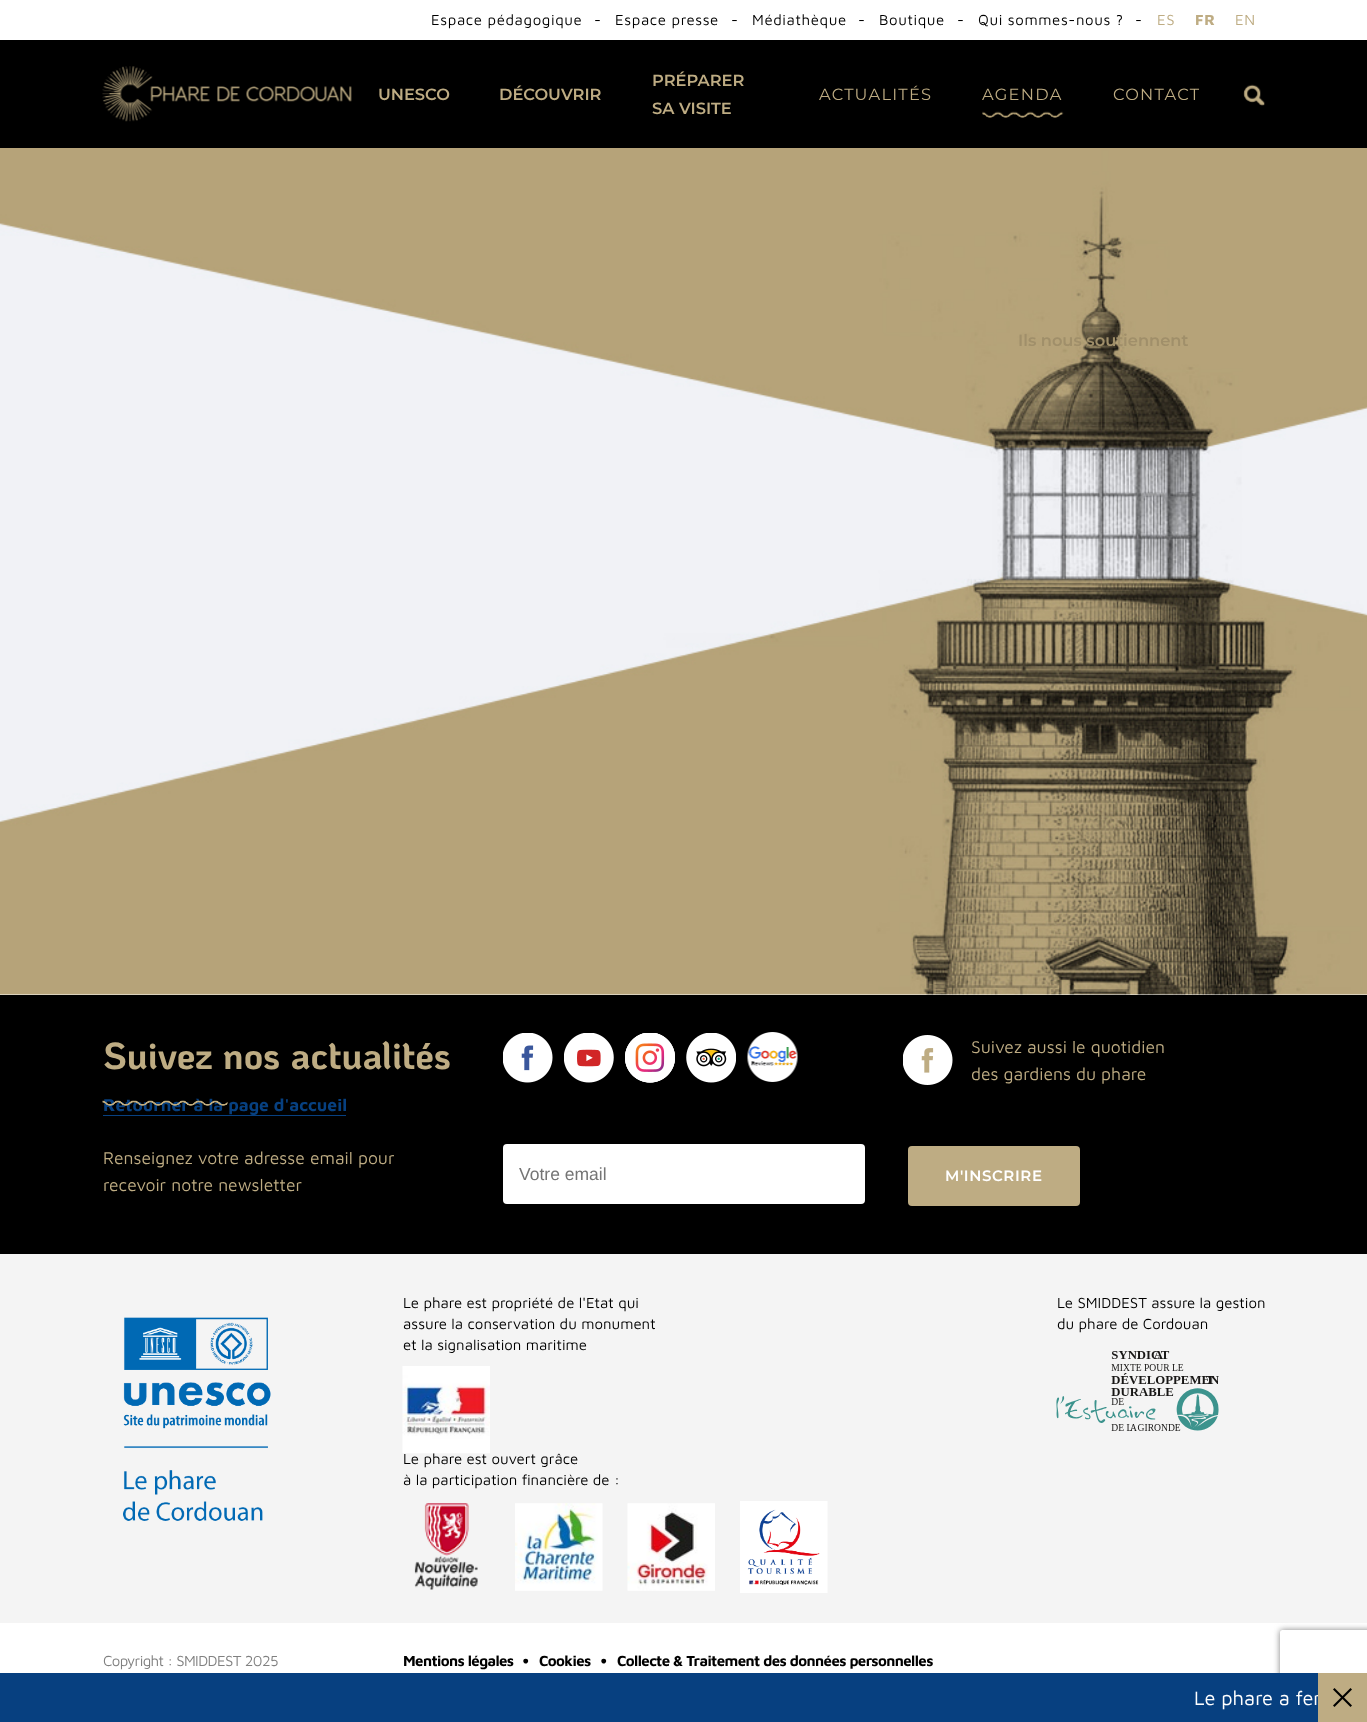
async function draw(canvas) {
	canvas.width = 1367;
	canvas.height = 1722;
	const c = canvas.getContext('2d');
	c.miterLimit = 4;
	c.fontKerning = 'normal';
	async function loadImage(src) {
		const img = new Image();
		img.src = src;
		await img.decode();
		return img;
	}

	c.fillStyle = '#fff';
	c.fillRect(0, 0, 1367, 1722);
	c.letterSpacing = '0.6px';
	c.font = '15px Maven Pro';
	c.fillStyle = '#000';
	for (const [text, x, y] of [
		['Espace pédagogique', 431, 25],
		['-', 594, 25],
		['Espace presse', 615, 25],
		['-', 731, 25],
		['Médiathèque', 752, 25],
		['-', 858, 25],
		['Boutique', 879, 25],
		['-', 957, 25],
		['Qui sommes-nous ?', 978, 25],
		['-', 1135, 25],
	]) {
		c.fillText(text, x, y);
	}
	c.fillStyle = '#beac83';
	c.fillText('ES', 1157, 25);
	c.font = 'bold 15px Maven Pro';
	c.fillText('FR', 1195, 25);
	c.font = '15px Maven Pro';
	c.fillText('EN', 1235, 25);
	c.fillStyle = '#000';
	c.fillRect(0, 40, 1367, 108);
	c.drawImage(await loadImage('img1.png'), 102, 66, 250, 56);
	c.letterSpacing = '0px';
	c.font = '600 16.25px Montserrat';
	c.fillStyle = '#beac83';
	for (const [text, x, y] of [
		['DÉCOUVRIR', 499, 100],
		['PRÉPARER', 652, 86],
		['SA VISITE', 652, 114],
	]) {
		c.fillText(text, x, y);
	}
	c.letterSpacing = '1.25px';
	c.font = '16.25px Montserrat';
	c.fillText('ACTUALITÉS', 819, 100);
	c.drawImage(await loadImage('img2.png'), 1243, 84, 22, 22);
	c.letterSpacing = '0px';
	c.font = '600 16.25px Montserrat';
	c.fillText('UNESCO', 378, 100);
	c.drawImage(await loadImage('img11.png'), 0, 148, 1367, 847);
	c.fillStyle = '#a08f6a';
	c.fillText('Ils nous soutiennent', 1018, 346);
	c.letterSpacing = '1.25px';
	c.font = '16.25px Montserrat';
	c.fillStyle = '#beac83';
	c.fillText('AGENDA', 982, 100);
	c.drawImage(await loadImage('img3.png'), 982, 111, 82, 7);
	c.fillText('CONTACT', 1113, 100);
	c.fillStyle = '#000';
	c.fillRect(0, 995, 1367, 259);
	c.letterSpacing = '0px';
	c.font = 'bold 37.5px KoHo';
	c.fillStyle = '#beac83';
	c.fillText('Suivez nos actualités', 103, 1069);
	c.font = 'bold 17.5px Maven Pro';
	c.fillStyle = '#074080';
	c.fillText('Retourner à la page d\'accueil', 103, 1111);
	c.drawImage(await loadImage('img4.png'), 102, 1100, 126, 6);
	c.drawImage(await loadImage('img5.png'), 503, 1033, 50, 50);
	c.drawImage(await loadImage('img6.png'), 564, 1033, 50, 50);
	c.drawImage(await loadImage('img7.png'), 625, 1033, 50, 50);
	c.drawImage(await loadImage('img8.png'), 686, 1033, 50, 50);
	c.drawImage(await loadImage('img9.png'), 747, 1032, 51, 50);
	c.drawImage(await loadImage('img10.png'), 903, 1035, 50, 50);
	c.font = '17.5px Maven Pro';
	c.fillStyle = '#beac83';
	for (const [text, x, y] of [
		['Suivez aussi le quotidien', 971, 1053],
		['des gardiens du phare', 971, 1080],
		['Renseignez votre adresse email pour', 103, 1164],
		['recevoir notre newsletter', 103, 1191],
	]) {
		c.fillText(text, x, y);
	}
	c.fillStyle = '#fff';
	c.beginPath();
	c.roundRect(503, 1144, 362, 60, 4);
	c.fill();
	c.font = '17.5px Liberation Sans';
	c.fillStyle = '#757575';
	c.fillText('Votre email', 519, 1180);
	c.fillStyle = '#beac83';
	c.beginPath();
	c.roundRect(908, 1146, 172, 60, 4);
	c.fill();
	c.letterSpacing = '0.6px';
	c.font = '600 15px Montserrat';
	c.fillStyle = '#fff';
	c.fillText('M\'INSCRIRE', 945, 1181);
	c.fillStyle = '#074080';
	c.fillRect(103, 1115, 243, 1);
	c.fillStyle = '#f4f4f4';
	c.fillRect(0, 1254, 1367, 369);
	c.drawImage(await loadImage('img12.png'), 123, 1317, 148, 204);
	c.letterSpacing = '0px';
	c.font = '15px Maven Pro';
	c.fillStyle = '#000';
	for (const [text, x, y] of [
		['Le phare est propriété de l\'Etat qui', 403, 1308],
		['assure la conservation du monument', 403, 1329],
		['et la signalisation maritime', 403, 1350],
		['Le phare est ouvert grâce', 403, 1464],
	]) {
		c.fillText(text, x, y);
	}
	c.drawImage(await loadImage('img13.png'), 402, 1366, 88, 88);
	c.fillText('Le SMIDDEST assure la gestion', 1057, 1308);
	c.fillText('du phare de Cordouan', 1057, 1329);
	c.drawImage(await loadImage('img14.png'), 1056, 1351, 163, 80);
	c.fillText('à la participation financière de :', 403, 1485);
	c.drawImage(await loadImage('img15.png'), 414, 1503, 64, 87);
	c.drawImage(await loadImage('img16.png'), 515, 1503, 88, 88);
	c.drawImage(await loadImage('img17.png'), 627, 1503, 88, 88);
	c.drawImage(await loadImage('img18.png'), 740, 1501, 88, 92);
	c.letterSpacing = '-0.6px';
	c.fillStyle = '#808080';
	c.fillText('Copyright : SMIDDEST 2025', 103, 1666);
	c.font = 'bold 15px Maven Pro';
	c.fillStyle = '#000';
	for (const [text, x, y] of [
		['Mentions légales', 403, 1666],
		['•', 522, 1666],
		['Cookies', 539, 1666],
		['•', 600, 1666],
		['Collecte & Traitement des données personnelles', 617, 1666],
	]) {
		c.fillText(text, x, y);
	}
	c.save();
	c.beginPath();
	c.moveTo(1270, 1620);
	c.lineTo(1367, 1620);
	c.lineTo(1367, 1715);
	c.lineTo(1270, 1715);
	c.closePath();
	c.moveTo(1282.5, 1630);
	c.lineTo(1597.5, 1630);
	c.bezierCurveTo(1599, 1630, 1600, 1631, 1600, 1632.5);
	c.lineTo(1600, 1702.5);
	c.bezierCurveTo(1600, 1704, 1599, 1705, 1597.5, 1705);
	c.lineTo(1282.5, 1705);
	c.bezierCurveTo(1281, 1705, 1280, 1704, 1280, 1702.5);
	c.lineTo(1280, 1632.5);
	c.bezierCurveTo(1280, 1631, 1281, 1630, 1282.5, 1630);
	c.closePath();
	c.clip('evenodd');
	c.fillStyle = '#808080';
	c.filter = 'blur(3px)';
	c.beginPath();
	c.roundRect(1280, 1630, 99, 75, 2.5);
	c.fill();
	c.filter = 'none';
	c.restore();
	c.fillStyle = '#074080';
	c.fillRect(0, 1673, 1318, 49);
	c.letterSpacing = '0px';
	c.font = '20px Maven Pro';
	c.fillStyle = '#fff';
	c.fillText('Le phare a fer', 1194, 1705);
	c.fillStyle = '#beac83';
	c.fillRect(1318, 1673, 49, 49);
	c.fillStyle = '#000';
	c.beginPath();
	c.moveTo(1334.5, 1688);
	c.lineTo(1352, 1705.5);
	c.lineTo(1350.5, 1707);
	c.lineTo(1333, 1689.5);
	c.closePath();
	c.fill();
	c.beginPath();
	c.moveTo(1333, 1705.5);
	c.lineTo(1350.5, 1688);
	c.lineTo(1352, 1689.5);
	c.lineTo(1334.5, 1707);
	c.closePath();
	c.fill();
}

draw(document.querySelector('canvas'));
